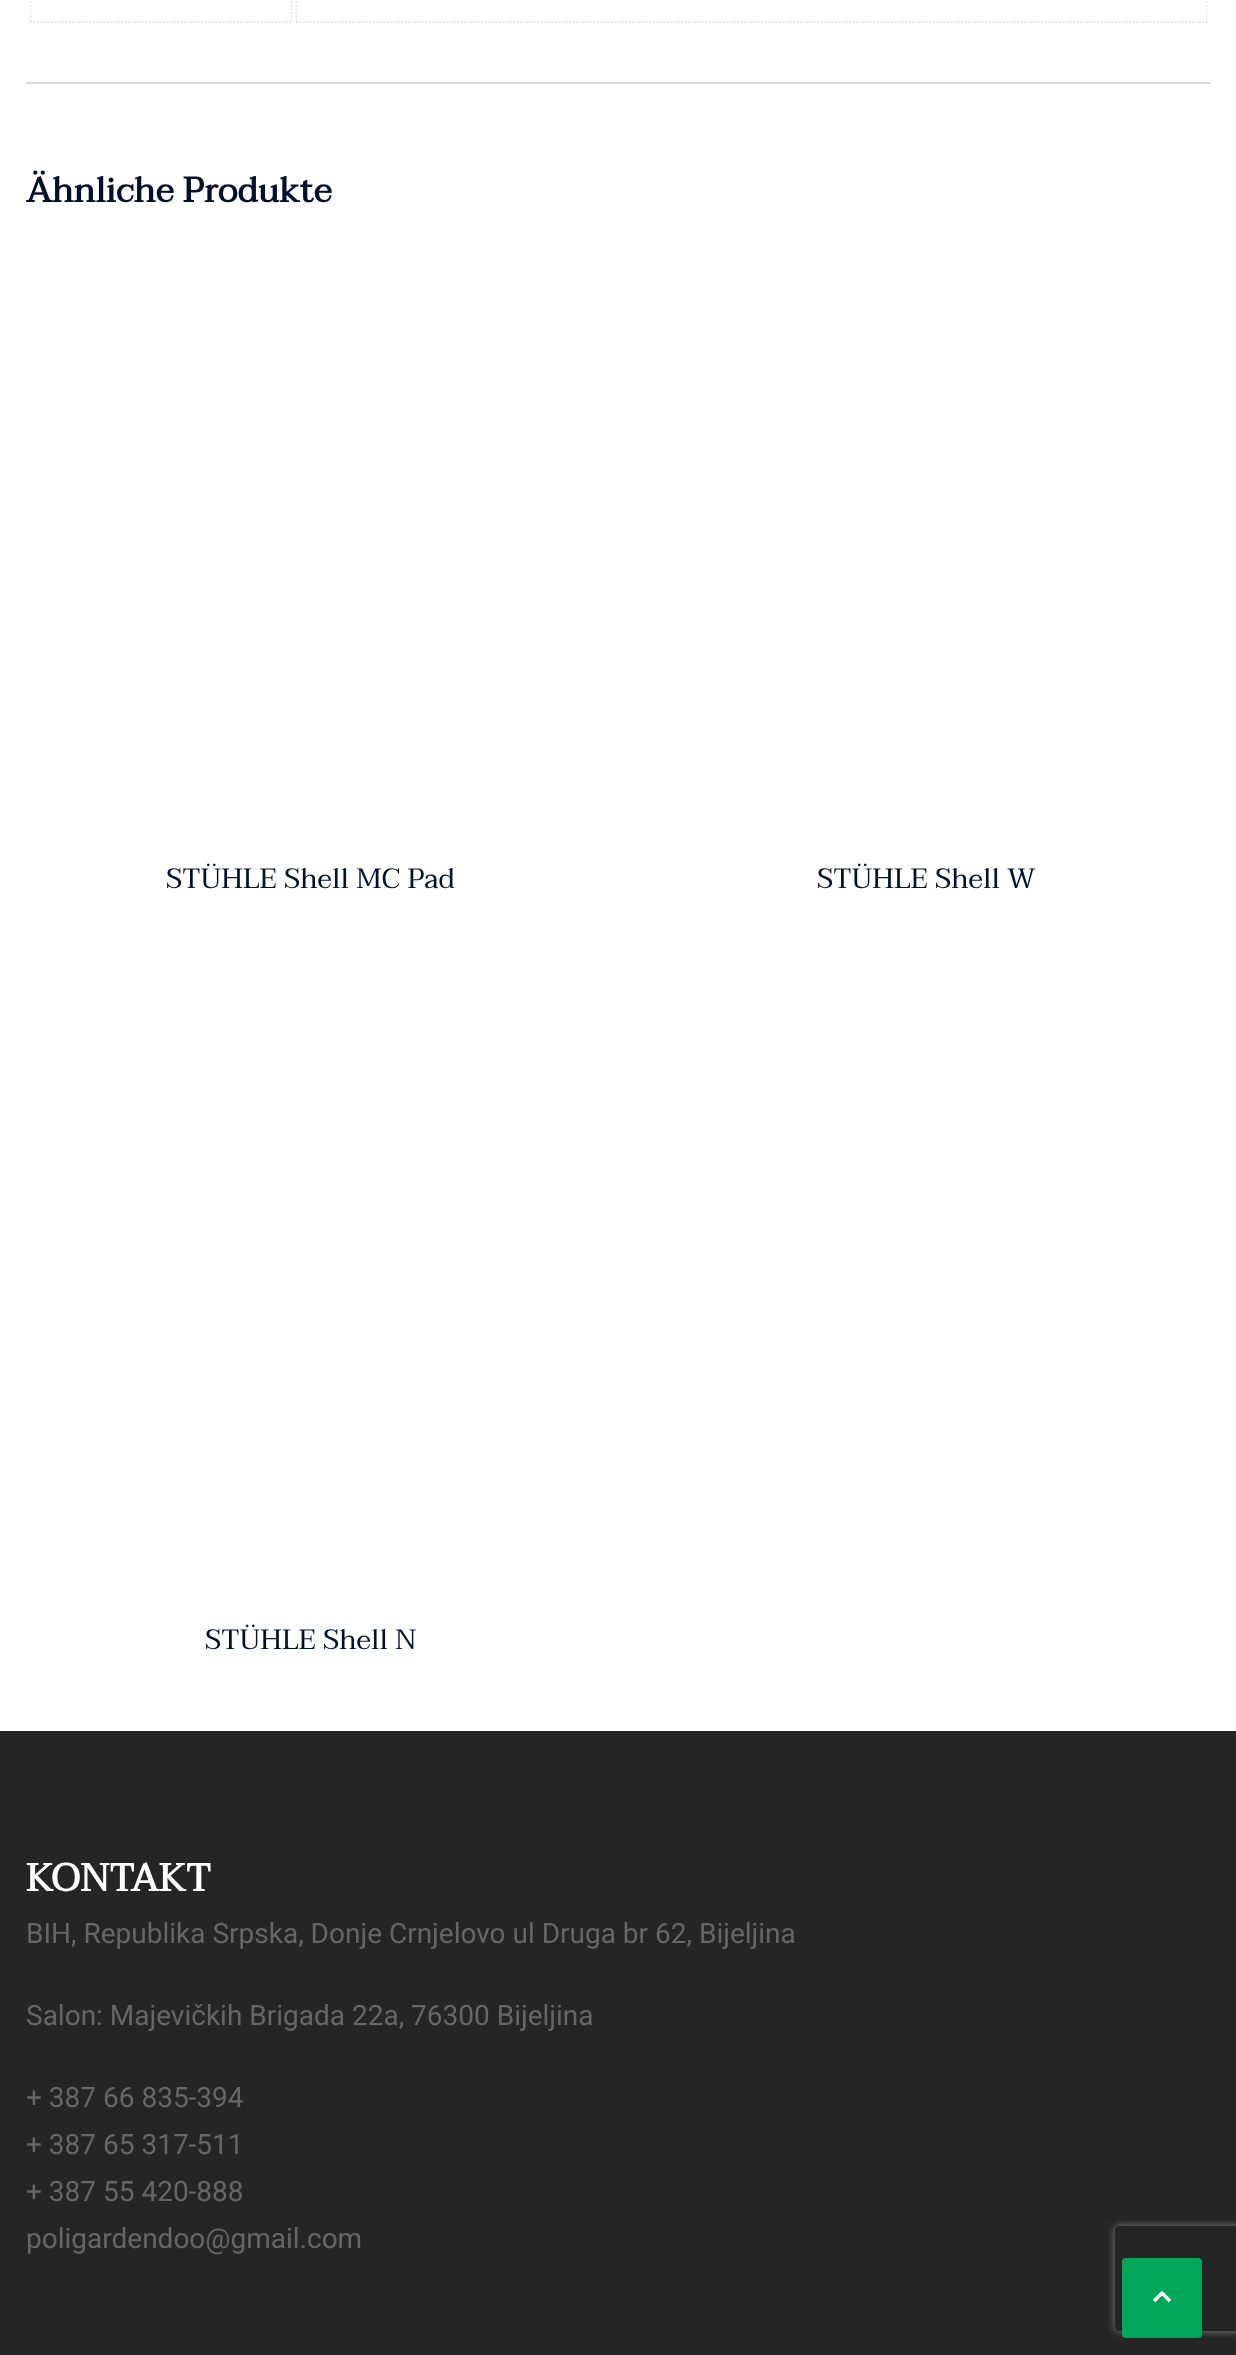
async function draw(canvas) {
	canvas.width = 1236;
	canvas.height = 2355;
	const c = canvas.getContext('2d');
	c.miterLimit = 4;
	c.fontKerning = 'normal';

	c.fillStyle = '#fff';
	c.fillRect(0, 0, 1236, 2355);
	c.fillStyle = '#dbdbdb';
	c.fillRect(26, 82, 1185, 2);
	c.beginPath();
	c.moveTo(291.5, -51);
	c.lineTo(291.5, 23);
	c.strokeStyle = '#e6e6e6';
	c.lineWidth = 1.8;
	c.setLineDash([1.75, 1.75]);
	c.stroke();
	c.beginPath();
	c.moveTo(30, 22);
	c.lineTo(292, 22);
	c.strokeStyle = '#0000001a';
	c.stroke();
	c.beginPath();
	c.moveTo(30.5, -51);
	c.lineTo(30.5, 23);
	c.stroke();
	c.beginPath();
	c.moveTo(1206.5, -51);
	c.lineTo(1206.5, 23);
	c.strokeStyle = '#e6e6e6';
	c.stroke();
	c.beginPath();
	c.moveTo(296, 22);
	c.lineTo(1207.5, 22);
	c.strokeStyle = '#0000001a';
	c.stroke();
	c.beginPath();
	c.moveTo(296.5, -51);
	c.lineTo(296.5, 23);
	c.stroke();
	c.font = 'bold 35px Taviraj';
	c.fillStyle = '#00102e';
	c.fillText('Ähnliche Produkte', 26, 202);
	c.font = '28px Taviraj';
	for (const [text, x, y] of [
		['STÜHLE Shell MC Pad', 166, 888],
		['STÜHLE Shell W', 817, 888],
		['STÜHLE Shell N', 205, 1649],
	]) {
		c.fillText(text, x, y);
	}
	c.fillStyle = '#252525';
	c.fillRect(0, 1731, 1236, 624);
	c.font = 'bold 38.5px Taviraj';
	c.fillStyle = '#fff';
	c.fillText('KONTAKT', 26, 1891);
	c.font = '28px Roboto';
	c.fillStyle = '#666';
	for (const [text, x, y] of [
		['BIH, Republika Srpska, Donje Crnjelovo ul Druga br 62, Bijeljina', 26, 1943],
		['Salon: Majevičkih Brigada 22a, 76300 Bijeljina', 26, 2025],
		['+ 387 66 835-394', 26, 2107],
		['+ 387 65 317-511', 26, 2154],
		['+ 387 55 420-888', 26, 2201],
		['poligardendoo@gmail.com', 26, 2248],
	]) {
		c.fillText(text, x, y);
	}
	c.save();
	c.beginPath();
	c.moveTo(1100, 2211);
	c.lineTo(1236, 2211);
	c.lineTo(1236, 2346);
	c.lineTo(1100, 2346);
	c.closePath();
	c.moveTo(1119, 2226);
	c.lineTo(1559, 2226);
	c.bezierCurveTo(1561, 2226, 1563, 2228, 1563, 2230);
	c.lineTo(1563, 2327);
	c.bezierCurveTo(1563, 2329, 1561, 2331, 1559, 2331);
	c.lineTo(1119, 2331);
	c.bezierCurveTo(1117, 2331, 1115, 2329, 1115, 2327);
	c.lineTo(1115, 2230);
	c.bezierCurveTo(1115, 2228, 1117, 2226, 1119, 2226);
	c.closePath();
	c.clip('evenodd');
	c.fillStyle = '#808080';
	c.filter = 'blur(4.5px)';
	c.beginPath();
	c.roundRect(1115, 2226, 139, 105, 4);
	c.fill();
	c.filter = 'none';
	c.restore();
	c.fillStyle = '#00a759';
	c.beginPath();
	c.roundRect(1122, 2258, 80, 80, 4);
	c.fill();
	c.beginPath();
	c.moveTo(1154, 2301);
	c.lineTo(1162, 2293);
	c.lineTo(1170, 2301);
	c.strokeStyle = '#fff';
	c.lineWidth = 3.5;
	c.lineJoin = 'round';
	c.setLineDash([]);
	c.stroke();
}

draw(document.querySelector('canvas'));
